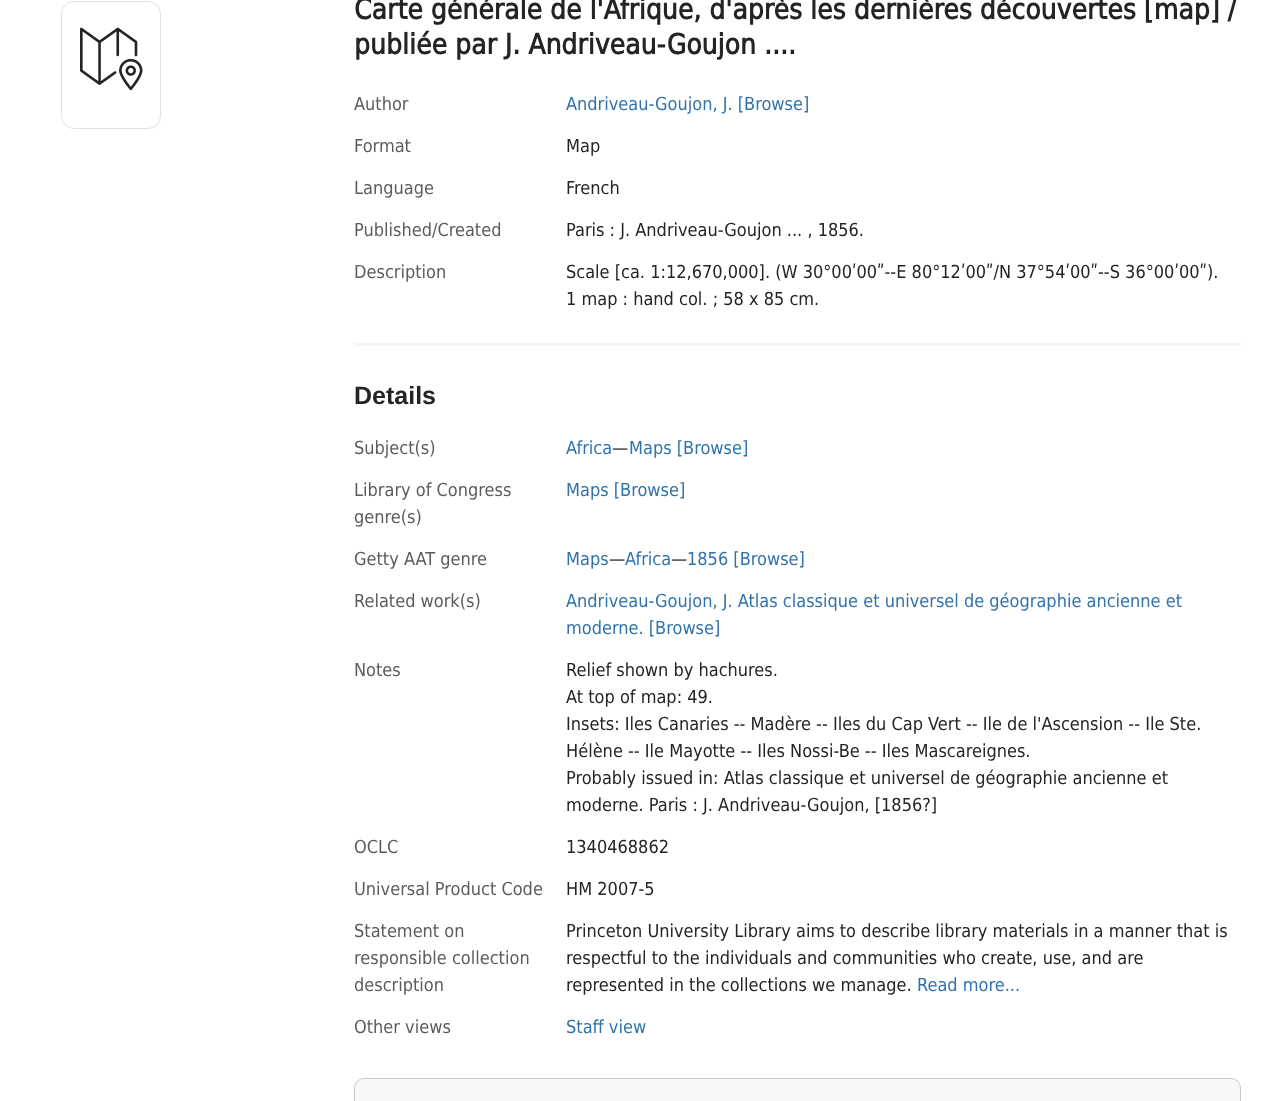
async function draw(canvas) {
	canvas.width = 1272;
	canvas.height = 1101;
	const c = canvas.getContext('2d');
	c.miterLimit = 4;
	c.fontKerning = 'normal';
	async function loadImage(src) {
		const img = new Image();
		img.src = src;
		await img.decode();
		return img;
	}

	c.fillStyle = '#fff';
	c.fillRect(0, 0, 1272, 1101);
	c.beginPath();
	c.roundRect(61.5, 1.5, 99, 127, 12.5);
	c.strokeStyle = '#e1e1e1';
	c.stroke();
	c.drawImage(await loadImage('img1.png'), 80, 27, 63, 64);
	c.font = 'bold 28px DejaVu Sans';
	c.fillStyle = '#242424';
	c.fillText('Carte générale de l\'Afrique, d\'après les dernières découvertes [map] /', 354, 19);
	c.fillText('publiée par J. Andriveau-Goujon ....', 354, 54);
	c.fillStyle = '#f5f5f5';
	c.fillRect(354, 343, 887, 3);
	c.font = '18px DejaVu Sans';
	c.fillStyle = '#595c5f';
	c.fillText('Author', 354, 110);
	c.fillStyle = '#3072ab';
	c.fillText('Andriveau-Goujon, J. [Browse]', 566, 110);
	c.fillStyle = '#595c5f';
	c.fillText('Format', 354, 152);
	c.fillStyle = '#242424';
	c.fillText('Map', 566, 152);
	c.fillStyle = '#595c5f';
	c.fillText('Language', 354, 194);
	c.fillStyle = '#242424';
	c.fillText('French', 566, 194);
	c.fillStyle = '#595c5f';
	c.fillText('Published/Created', 354, 236);
	c.fillStyle = '#242424';
	c.fillText('Paris : J. Andriveau-Goujon ... , 1856.', 566, 236);
	c.fillStyle = '#595c5f';
	c.fillText('Description', 354, 278);
	c.fillStyle = '#242424';
	c.fillText('Scale [ca. 1:12,670,000]. (W 30°00ʹ00ʺ--E 80°12ʹ00ʺ/N 37°54ʹ00ʺ--S 36°00ʹ00ʺ).', 566, 278);
	c.fillText('1 map : hand col. ; 58 x 85 cm.', 566, 305);
	c.font = 'bold 25px Liberation Sans';
	c.fillText('Details', 354, 404);
	c.font = '18px DejaVu Sans';
	c.fillStyle = '#595c5f';
	c.fillText('Subject(s)', 354, 454);
	c.fillStyle = '#3072ab';
	c.fillText('Africa', 566, 454);
	c.fillStyle = '#242424';
	c.fillText('—', 612, 454);
	c.fillStyle = '#3072ab';
	c.fillText('Maps [Browse]', 629, 454);
	c.fillStyle = '#595c5f';
	c.fillText('Library of Congress', 354, 496);
	c.fillText('genre(s)', 354, 523);
	c.fillStyle = '#3072ab';
	c.fillText('Maps [Browse]', 566, 496);
	c.fillStyle = '#595c5f';
	c.fillText('Getty AAT genre', 354, 565);
	c.fillStyle = '#3072ab';
	c.fillText('Maps', 566, 565);
	c.fillStyle = '#242424';
	c.fillText('—', 609, 565);
	c.fillStyle = '#3072ab';
	c.fillText('Africa', 625, 565);
	c.fillStyle = '#242424';
	c.fillText('—', 671, 565);
	c.fillStyle = '#3072ab';
	c.fillText('1856 [Browse]', 687, 565);
	c.fillStyle = '#595c5f';
	c.fillText('Related work(s)', 354, 607);
	c.fillStyle = '#3072ab';
	c.fillText('Andriveau-Goujon, J. Atlas classique et universel de géographie ancienne et', 566, 607);
	c.fillText('moderne. [Browse]', 566, 634);
	c.fillStyle = '#595c5f';
	c.fillText('Notes', 354, 676);
	c.fillStyle = '#242424';
	for (const [text, x, y] of [
		['Relief shown by hachures.', 566, 676],
		['At top of map: 49.', 566, 703],
		['Insets: Iles Canaries -- Madère -- Iles du Cap Vert -- Ile de l\'Ascension -- Ile Ste.', 566, 730],
		['Hélène -- Ile Mayotte -- Iles Nossi-Be -- Iles Mascareignes.', 566, 757],
		['Probably issued in: Atlas classique et universel de géographie ancienne et', 566, 784],
		['moderne. Paris : J. Andriveau-Goujon, [1856?]', 566, 811],
	]) {
		c.fillText(text, x, y);
	}
	c.fillStyle = '#595c5f';
	c.fillText('OCLC', 354, 853);
	c.fillStyle = '#242424';
	c.fillText('1340468862', 566, 853);
	c.fillStyle = '#595c5f';
	c.fillText('Universal Product Code', 354, 895);
	c.fillStyle = '#242424';
	c.fillText('HM 2007-5', 566, 895);
	c.fillStyle = '#595c5f';
	for (const [text, x, y] of [
		['Statement on', 354, 937],
		['responsible collection', 354, 964],
		['description', 354, 991],
	]) {
		c.fillText(text, x, y);
	}
	c.fillStyle = '#242424';
	for (const [text, x, y] of [
		['Princeton University Library aims to describe library materials in a manner that is', 566, 937],
		['respectful to the individuals and communities who create, use, and are', 566, 964],
		['represented in the collections we manage.', 566, 991],
	]) {
		c.fillText(text, x, y);
	}
	c.fillStyle = '#3072ab';
	c.fillText('Read more...', 917, 991);
	c.fillStyle = '#595c5f';
	c.fillText('Other views', 354, 1033);
	c.fillStyle = '#3072ab';
	c.fillText('Staff view', 566, 1033);
	c.fillStyle = '#f7f7f7';
	c.beginPath();
	c.roundRect(354.5, 1078.5, 886, 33, 9.5);
	c.fill();
	c.strokeStyle = '#c5c8ce';
	c.stroke();
}

draw(document.querySelector('canvas'));
